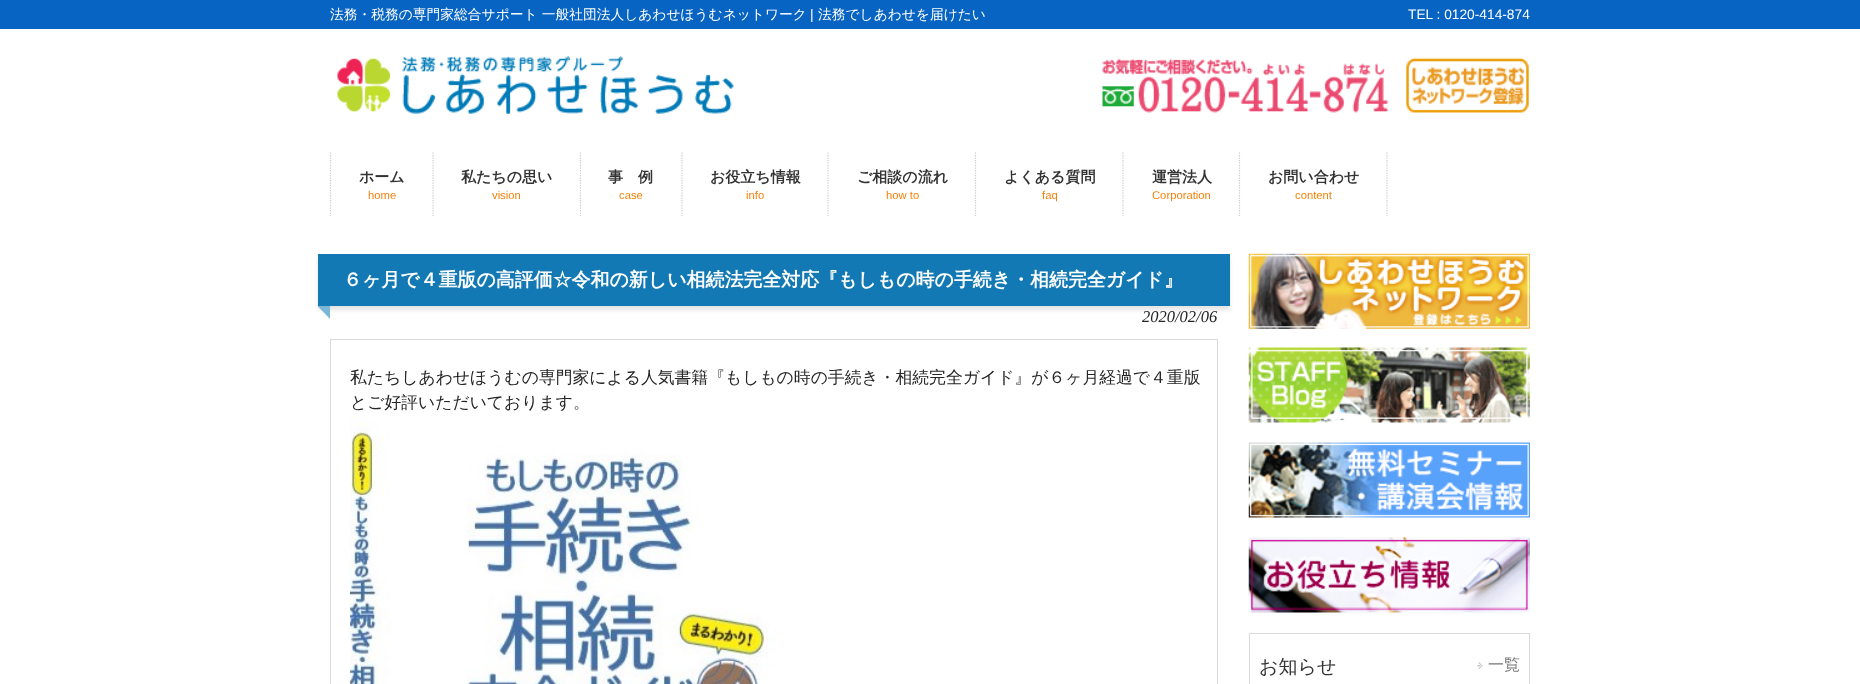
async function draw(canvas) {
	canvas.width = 1860;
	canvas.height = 684;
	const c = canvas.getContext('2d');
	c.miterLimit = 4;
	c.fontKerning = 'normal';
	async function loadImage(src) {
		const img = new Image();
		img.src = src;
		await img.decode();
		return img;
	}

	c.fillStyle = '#fff';
	c.fillRect(0, 0, 1860, 684);
	c.fillStyle = '#0764c3';
	c.fillRect(0, 0, 1860, 29);
	c.font = '500 13.75px WenQuanYi Zen Hei';
	c.fillStyle = '#fff';
	c.fillText('法務・税務の専門家総合サポート 一般社団法人しあわせほうむネットワーク', 330, 19);
	c.font = '13.75px Liberation Sans';
	c.fillText('|', 810, 19);
	c.font = '500 13.75px WenQuanYi Zen Hei';
	c.fillText('法務でしあわせを届けたい', 818, 19);
	c.font = '13.75px Liberation Sans';
	c.fillText('TEL : 0120-414-874', 1408, 19);
	c.drawImage(await loadImage('img1.png'), 337, 56, 397, 58);
	c.drawImage(await loadImage('img2.png'), 1102, 58, 286, 55);
	c.drawImage(await loadImage('img3.png'), 1406, 57, 123, 56);
	c.beginPath();
	c.moveTo(433, 152.5);
	c.lineTo(433, 216);
	c.strokeStyle = '#ccc';
	c.lineWidth = 1.2;
	c.setLineDash([1.25, 1.25]);
	c.stroke();
	c.beginPath();
	c.moveTo(330.5, 152.5);
	c.lineTo(330.5, 216);
	c.stroke();
	c.font = 'bold 15px WenQuanYi Zen Hei';
	c.fillStyle = '#333';
	c.fillText('ホーム', 359, 182);
	c.font = '11.25px Liberation Sans';
	c.fillStyle = '#f48009';
	c.fillText('home', 368, 199);
	c.beginPath();
	c.moveTo(580.5, 152.5);
	c.lineTo(580.5, 216);
	c.stroke();
	c.font = 'bold 15px WenQuanYi Zen Hei';
	c.fillStyle = '#333';
	c.fillText('私たちの思い', 461, 182);
	c.font = '11.25px Liberation Sans';
	c.fillStyle = '#f48009';
	c.fillText('vision', 492, 199);
	c.beginPath();
	c.moveTo(682, 152.5);
	c.lineTo(682, 216);
	c.stroke();
	c.font = 'bold 15px WenQuanYi Zen Hei';
	c.fillStyle = '#333';
	c.fillText('事　例', 608, 182);
	c.font = '11.25px Liberation Sans';
	c.fillStyle = '#f48009';
	c.fillText('case', 619, 199);
	c.beginPath();
	c.moveTo(828, 152.5);
	c.lineTo(828, 216);
	c.stroke();
	c.font = 'bold 15px WenQuanYi Zen Hei';
	c.fillStyle = '#333';
	c.fillText('お役立ち情報', 710, 182);
	c.font = '11.25px Liberation Sans';
	c.fillStyle = '#f48009';
	c.fillText('info', 746, 199);
	c.beginPath();
	c.moveTo(975.5, 152.5);
	c.lineTo(975.5, 216);
	c.stroke();
	c.font = 'bold 15px WenQuanYi Zen Hei';
	c.fillStyle = '#333';
	c.fillText('ご相談の流れ', 857, 182);
	c.font = '11.25px Liberation Sans';
	c.fillStyle = '#f48009';
	c.fillText('how to', 886, 199);
	c.beginPath();
	c.moveTo(1123, 152.5);
	c.lineTo(1123, 216);
	c.stroke();
	c.font = 'bold 15px WenQuanYi Zen Hei';
	c.fillStyle = '#333';
	c.fillText('よくある質問', 1004, 182);
	c.font = '11.25px Liberation Sans';
	c.fillStyle = '#f48009';
	c.fillText('faq', 1042, 199);
	c.beginPath();
	c.moveTo(1239.5, 152.5);
	c.lineTo(1239.5, 216);
	c.stroke();
	c.font = 'bold 15px WenQuanYi Zen Hei';
	c.fillStyle = '#333';
	c.fillText('運営法人', 1152, 182);
	c.font = '11.25px Liberation Sans';
	c.fillStyle = '#f48009';
	c.fillText('Corporation', 1152, 199);
	c.beginPath();
	c.moveTo(1387, 152.5);
	c.lineTo(1387, 216);
	c.stroke();
	c.font = 'bold 15px WenQuanYi Zen Hei';
	c.fillStyle = '#333';
	c.fillText('お問い合わせ', 1268, 182);
	c.font = '11.25px Liberation Sans';
	c.fillStyle = '#f48009';
	c.fillText('content', 1295, 199);
	c.fillStyle = '#0000001a';
	c.filter = 'blur(2px)';
	c.beginPath();
	c.rect(318, 258, 912, 52);
	c.fill();
	c.filter = 'none';
	c.fillStyle = '#1279b4';
	c.fillRect(318, 254, 912, 52);
	c.font = 'bold 18.95px WenQuanYi Zen Hei';
	c.fillStyle = '#fff';
	c.fillText('６ヶ月で４重版の高評価☆令和の新しい相続法完全対応『もしもの時の手続き・相続完全ガイド』', 343, 286);
	c.fillStyle = '#7bb8d8';
	c.beginPath();
	c.moveTo(330, 306);
	c.lineTo(330, 319);
	c.lineTo(317.5, 306);
	c.closePath();
	c.fill();
	c.font = 'italic 16.5px Liberation Serif';
	c.fillStyle = '#252525';
	c.fillText('2020/02/06', 1142, 322);
	c.strokeStyle = '#dadada';
	c.lineWidth = 1;
	c.setLineDash([]);
	c.strokeRect(330.5, 339.5, 887, 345);
	c.font = '500 16.82px WenQuanYi Zen Hei';
	c.fillText('私たちしあわせほうむの専門家による人気書籍『もしもの時の手続き・相続完全ガイド』が６ヶ月経過で４重版', 350, 383);
	c.fillText('とご好評いただいております。', 350, 408);
	c.drawImage(await loadImage('img4.png'), 350, 416, 427, 268);
	c.drawImage(await loadImage('img5.png'), 1248, 253, 282, 76);
	c.drawImage(await loadImage('img6.png'), 1248, 347, 282, 76);
	c.drawImage(await loadImage('img7.png'), 1248, 442, 282, 76);
	c.drawImage(await loadImage('img8.png'), 1248, 537, 282, 76);
	c.strokeRect(1249.5, 633.5, 280, 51);
	c.font = '500 19px WenQuanYi Zen Hei';
	c.fillStyle = '#333';
	c.fillText('お知らせ', 1259, 673);
	c.drawImage(await loadImage('img9.png'), 1477, 662, 6, 7);
	c.font = '500 16px WenQuanYi Zen Hei';
	c.fillStyle = '#777';
	c.fillText('一覧', 1488, 670);
}

draw(document.querySelector('canvas'));
